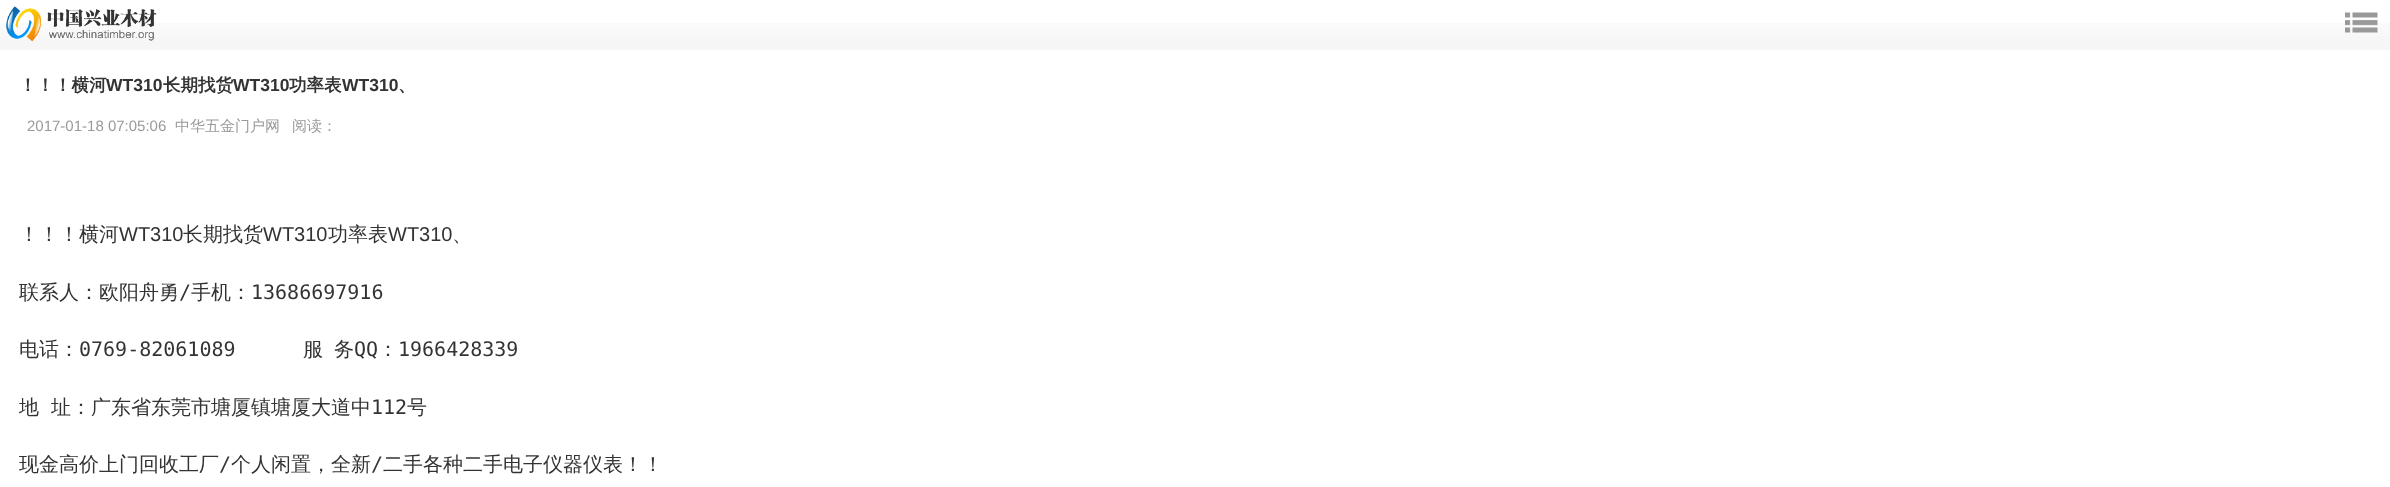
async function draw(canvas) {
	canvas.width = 2390;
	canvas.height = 487;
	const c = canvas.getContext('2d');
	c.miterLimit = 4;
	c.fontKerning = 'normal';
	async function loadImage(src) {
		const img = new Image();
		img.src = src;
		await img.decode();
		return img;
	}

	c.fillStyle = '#fff';
	c.fillRect(0, 0, 2390, 487);
	c.drawImage(await loadImage('img1.png'), 0, 23, 2390, 27);
	c.drawImage(await loadImage('img2.png'), 6, 6, 151, 36);
	c.drawImage(await loadImage('img3.png'), 2345, 12, 33, 21);
	c.font = 'bold 17.5px WenQuanYi Zen Hei';
	c.fillStyle = '#333';
	c.fillText('！！！横河', 19, 91);
	c.font = 'bold 17.5px Liberation Sans';
	c.fillText('WT310', 106, 91);
	c.font = 'bold 17.5px WenQuanYi Zen Hei';
	c.fillText('长期找货', 163, 91);
	c.font = 'bold 17.5px Liberation Sans';
	c.fillText('WT310', 233, 91);
	c.font = 'bold 17.5px WenQuanYi Zen Hei';
	c.fillText('功率表', 289, 91);
	c.font = 'bold 17.5px Liberation Sans';
	c.fillText('WT310', 342, 91);
	c.font = 'bold 17.5px WenQuanYi Zen Hei';
	c.fillText('、', 398, 91);
	c.font = '15px Liberation Sans';
	c.fillStyle = '#999';
	c.fillText('2017-01-18 07:05:06', 27, 131);
	c.font = '500 15px WenQuanYi Zen Hei';
	c.fillText('中华五金门户网', 175, 131);
	c.fillText('阅读：', 292, 131);
	c.font = '500 20px WenQuanYi Zen Hei';
	c.fillStyle = '#333';
	c.fillText('！！！横河', 19, 241);
	c.font = '20px Liberation Sans';
	c.fillText('WT310', 119, 241);
	c.font = '500 20px WenQuanYi Zen Hei';
	c.fillText('长期找货', 183, 241);
	c.font = '20px Liberation Sans';
	c.fillText('WT310', 263, 241);
	c.font = '500 20px WenQuanYi Zen Hei';
	c.fillText('功率表', 328, 241);
	c.font = '20px Liberation Sans';
	c.fillText('WT310', 388, 241);
	c.font = '500 20px WenQuanYi Zen Hei';
	c.fillText('、', 452, 241);
	c.fillText('联系人：欧阳舟勇', 19, 299);
	c.font = '20px DejaVu Sans Mono';
	c.fillText('/', 179, 299);
	c.font = '500 20px WenQuanYi Zen Hei';
	c.fillText('手机：', 191, 299);
	c.font = '20px DejaVu Sans Mono';
	c.fillText('13686697916', 251, 299);
	c.font = '500 20px WenQuanYi Zen Hei';
	c.fillText('电话：', 19, 356);
	c.font = '20px DejaVu Sans Mono';
	c.fillText('0769-82061089', 79, 356);
	c.wordSpacing = '5px';
	c.font = '500 20px WenQuanYi Zen Hei';
	c.fillText('服 务', 303, 356);
	c.wordSpacing = '0px';
	c.font = '20px DejaVu Sans Mono';
	c.fillText('QQ', 354, 356);
	c.font = '500 20px WenQuanYi Zen Hei';
	c.fillText('：', 378, 356);
	c.font = '20px DejaVu Sans Mono';
	c.fillText('1966428339', 398, 356);
	c.wordSpacing = '6px';
	c.font = '500 20px WenQuanYi Zen Hei';
	c.fillText('地 址：广东省东莞市塘厦镇塘厦大道中', 19, 414);
	c.wordSpacing = '0px';
	c.font = '20px DejaVu Sans Mono';
	c.fillText('112', 371, 414);
	c.font = '500 20px WenQuanYi Zen Hei';
	c.fillText('号', 407, 414);
	c.fillText('现金高价上门回收工厂', 19, 471);
	c.font = '20px DejaVu Sans Mono';
	c.fillText('/', 219, 471);
	c.font = '500 20px WenQuanYi Zen Hei';
	c.fillText('个人闲置，全新', 231, 471);
	c.font = '20px DejaVu Sans Mono';
	c.fillText('/', 371, 471);
	c.font = '500 20px WenQuanYi Zen Hei';
	c.fillText('二手各种二手电子仪器仪表！！', 383, 471);
}

draw(document.querySelector('canvas'));
